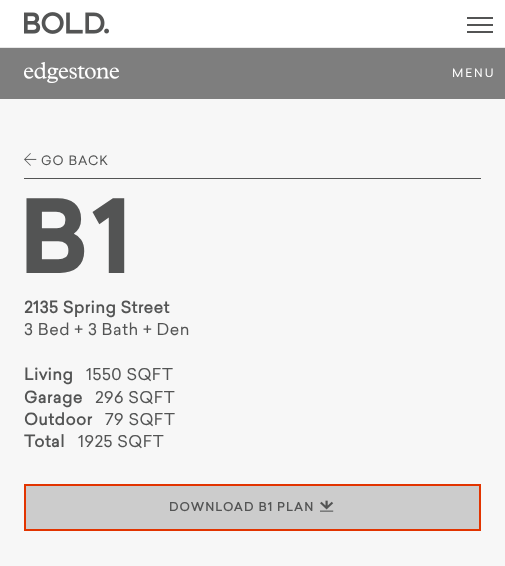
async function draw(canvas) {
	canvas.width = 505;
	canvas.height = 566;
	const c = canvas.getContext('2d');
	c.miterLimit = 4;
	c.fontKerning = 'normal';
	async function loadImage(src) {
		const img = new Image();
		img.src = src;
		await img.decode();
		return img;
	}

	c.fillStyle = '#f7f7f7';
	c.fillRect(0, 0, 505, 566);
	c.fillStyle = '#fff';
	c.fillRect(0, 0, 505, 47);
	c.fillStyle = '#e7e7e7';
	c.fillRect(0, 47, 505, 1);
	c.drawImage(await loadImage('img1.png'), 24, 12, 85, 22);
	for (const [x, y, w, h, color] of [
		[467, 24, 26, 2, '#535454'],
		[467, 17, 26, 2, '#535454'],
		[467, 31, 26, 2, '#535454'],
		[0, 48, 505, 51, '#7e7e7e'],
	]) {
		c.fillStyle = color;
		c.fillRect(x, y, w, h);
	}
	c.drawImage(await loadImage('img2.png'), 24, 62, 95, 21);
	c.letterSpacing = '2px';
	c.font = '11.5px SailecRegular';
	c.fillStyle = '#fff';
	c.fillText('MENU', 452, 77);
	c.fillStyle = '#535454';
	c.fillRect(24, 178, 457, 1);
	c.drawImage(await loadImage('img3.png'), 24, 153, 13, 13);
	c.letterSpacing = '1px';
	c.font = '12.75px SailecRegular';
	c.fillText('GO BACK', 41, 165);
	c.letterSpacing = '3px';
	c.font = '100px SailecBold';
	c.fillText('B1', 19, 273);
	c.letterSpacing = '0.5px';
	c.font = 'bold 16px SailecRegular';
	c.fillText('2135 Spring Street', 24, 313);
	c.font = '16px SailecRegular';
	c.fillText('3 Bed + 3 Bath + Den', 24, 335);
	c.font = 'bold 16px SailecRegular';
	c.fillText('Living', 24, 380);
	c.font = '16px SailecRegular';
	c.fillText('1550 SQFT', 86, 380);
	c.font = 'bold 16px SailecRegular';
	c.fillText('Garage', 24, 403);
	c.font = '16px SailecRegular';
	c.fillText('296 SQFT', 95, 403);
	c.font = 'bold 16px SailecRegular';
	c.fillText('Outdoor', 24, 425);
	c.font = '16px SailecRegular';
	c.fillText('79 SQFT', 105, 425);
	c.font = 'bold 16px SailecRegular';
	c.fillText('Total', 24, 447);
	c.font = '16px SailecRegular';
	c.fillText('1925 SQFT', 78, 447);
	c.fillStyle = '#ccc';
	c.beginPath();
	c.rect(25, 485, 455, 45);
	c.fill();
	c.strokeStyle = '#e23400';
	c.lineWidth = 2;
	c.stroke();
	c.letterSpacing = '1px';
	c.font = '12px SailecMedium';
	c.fillStyle = '#535454';
	c.fillText('DOWNLOAD B1 PLAN', 169, 511);
	c.drawImage(await loadImage('img4.png'), 320, 500, 14, 12);
}

draw(document.querySelector('canvas'));
